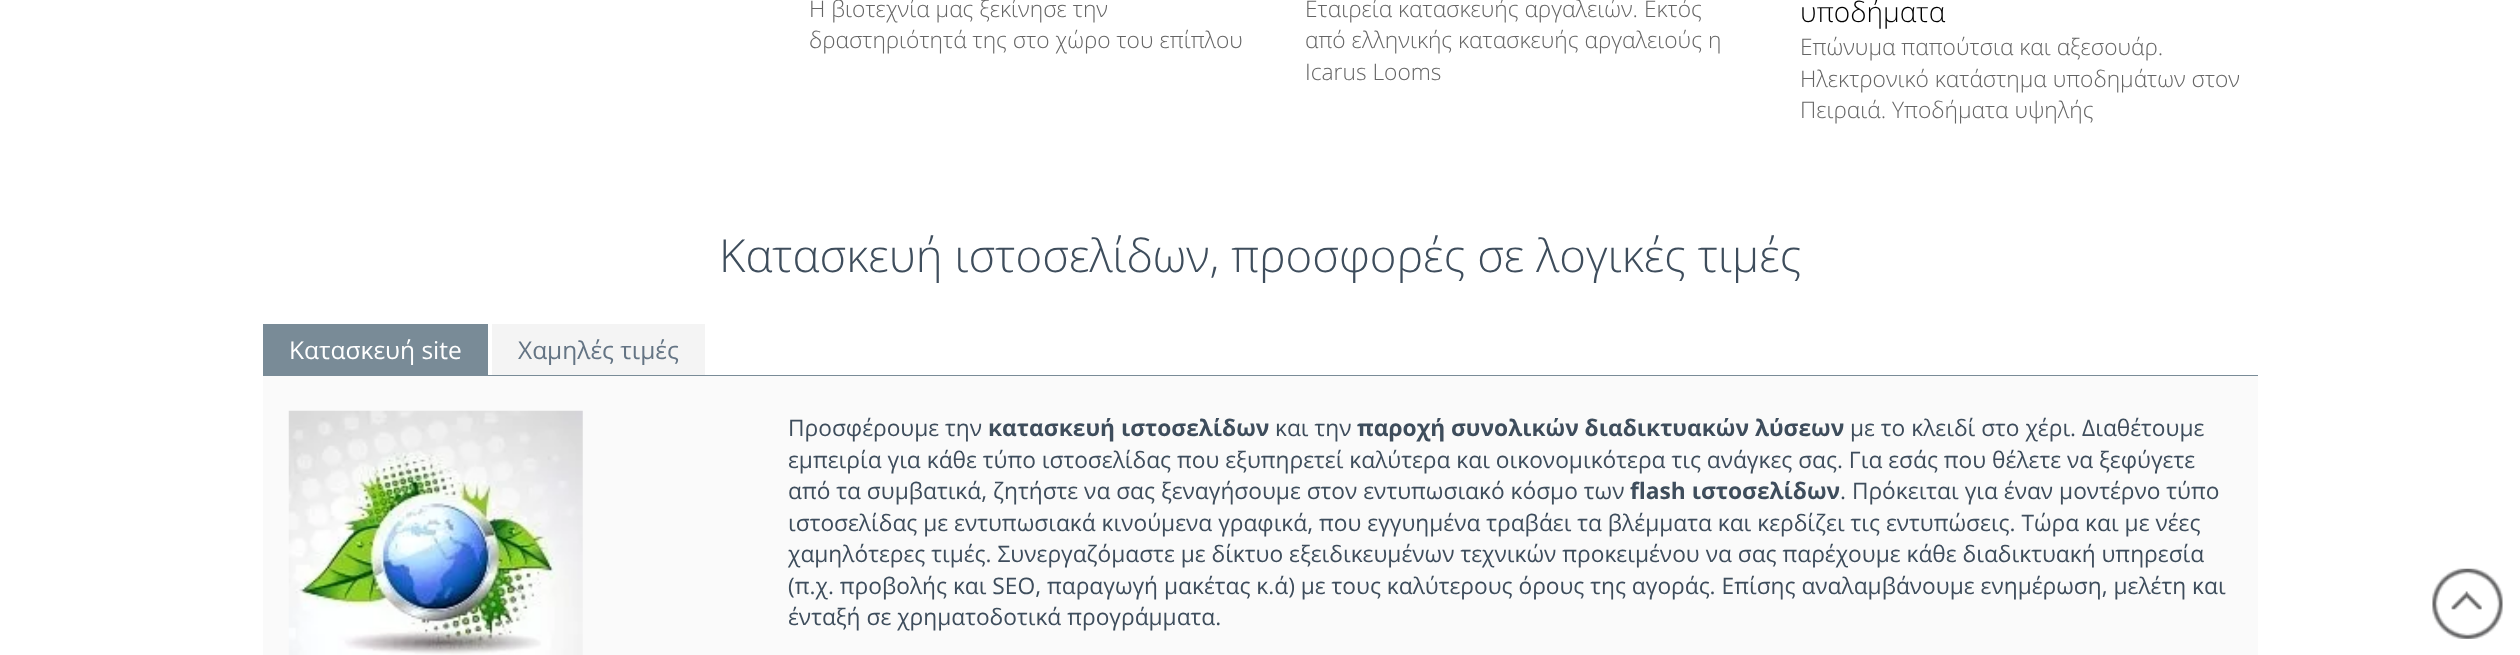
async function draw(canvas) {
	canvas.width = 2520;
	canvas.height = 655;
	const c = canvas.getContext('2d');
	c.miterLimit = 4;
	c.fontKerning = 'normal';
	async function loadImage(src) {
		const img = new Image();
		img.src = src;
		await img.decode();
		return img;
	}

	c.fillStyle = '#fff';
	c.fillRect(0, 0, 2520, 655);
	c.font = '300 22.75px Open Sans';
	c.fillStyle = '#656565';
	for (const [text, x, y] of [
		['Η βιοτεχνία μας ξεκίνησε την', 809, 17],
		['δραστηριότητά της στο χώρο του επίπλου', 809, 48],
		['Εταιρεία κατασκευής αργαλειών. Εκτός', 1305, 17],
		['από ελληνικής κατασκευής αργαλειούς η', 1305, 48],
		['Icarus Looms', 1305, 80],
	]) {
		c.fillText(text, x, y);
	}
	c.font = '300 28px Open Sans';
	c.fillStyle = '#000';
	c.fillText('υποδήματα', 1800, 22);
	c.font = '300 22.75px Open Sans';
	c.fillStyle = '#656565';
	for (const [text, x, y] of [
		['Επώνυμα παπούτσια και αξεσουάρ.', 1800, 55],
		['Ηλεκτρονικό κατάστημα υποδημάτων στον', 1800, 87],
		['Πειραιά. Υποδήματα υψηλής', 1800, 118],
	]) {
		c.fillText(text, x, y);
	}
	c.font = '300 45.5px Open Sans';
	c.fillStyle = '#3e4d5c';
	c.fillText('Κατασκευή ιστοσελίδων, προσφορές σε λογικές τιμές', 719, 272);
	c.fillStyle = '#798b97';
	c.fillRect(263, 375, 1995, 1);
	c.fillRect(263, 324, 225, 51);
	c.font = '24.5px Open Sans';
	c.fillStyle = '#fff';
	c.fillText('Κατασκευή site', 289, 359);
	c.fillStyle = '#f4f4f4';
	c.fillRect(492, 324, 213, 51);
	c.fillStyle = '#647484';
	c.fillText('Χαμηλές τιμές', 518, 359);
	c.fillStyle = '#fafafa';
	c.fillRect(263, 376, 1995, 279);
	c.drawImage(await loadImage('img1.png'), 288, 410, 295, 245);
	c.font = '22.75px Open Sans';
	c.fillStyle = '#3e4d5c';
	c.fillText('Προσφέρουμε την', 788, 436);
	c.font = 'bold 22.75px Open Sans';
	c.fillText('κατασκευή ιστοσελίδων', 988, 436);
	c.font = '22.75px Open Sans';
	c.fillText('και την', 1275, 436);
	c.font = 'bold 22.75px Open Sans';
	c.fillText('παροχή συνολικών διαδικτυακών λύσεων', 1357, 436);
	c.font = '22.75px Open Sans';
	for (const [text, x, y] of [
		['με το κλειδί στο χέρι. Διαθέτουμε', 1850, 436],
		['εμπειρία για κάθε τύπο ιστοσελίδας που εξυπηρετεί καλύτερα και οικονομικότερα τις ανάγκες σας. Για εσάς που θέλετε να ξεφύγετε', 788, 468],
		['από τα συμβατικά, ζητήστε να σας ξεναγήσουμε στον εντυπωσιακό κόσμο των', 788, 499],
	]) {
		c.fillText(text, x, y);
	}
	c.font = 'bold 22.75px Open Sans';
	c.fillText('flash ιστοσελίδων', 1630, 499);
	c.font = '22.75px Open Sans';
	for (const [text, x, y] of [
		['. Πρόκειται για έναν μοντέρνο τύπο', 1840, 499],
		['ιστοσελίδας με εντυπωσιακά κινούμενα γραφικά, που εγγυημένα τραβάει τα βλέμματα και κερδίζει τις εντυπώσεις. Τώρα και με νέες', 788, 531],
		['χαμηλότερες τιμές. Συνεργαζόμαστε με δίκτυο εξειδικευμένων τεχνικών προκειμένου να σας παρέχουμε κάθε διαδικτυακή υπηρεσία', 788, 562],
		['(π.χ. προβολής και SEO, παραγωγή μακέτας κ.ά) με τους καλύτερους όρους της αγοράς. Επίσης αναλαμβάνουμε ενημέρωση, μελέτη και', 788, 594],
		['ένταξή σε χρηματοδοτικά προγράμματα.', 788, 625],
	]) {
		c.fillText(text, x, y);
	}
	c.drawImage(await loadImage('img2.png'), 2432, 568, 71, 71);
}

draw(document.querySelector('canvas'));
